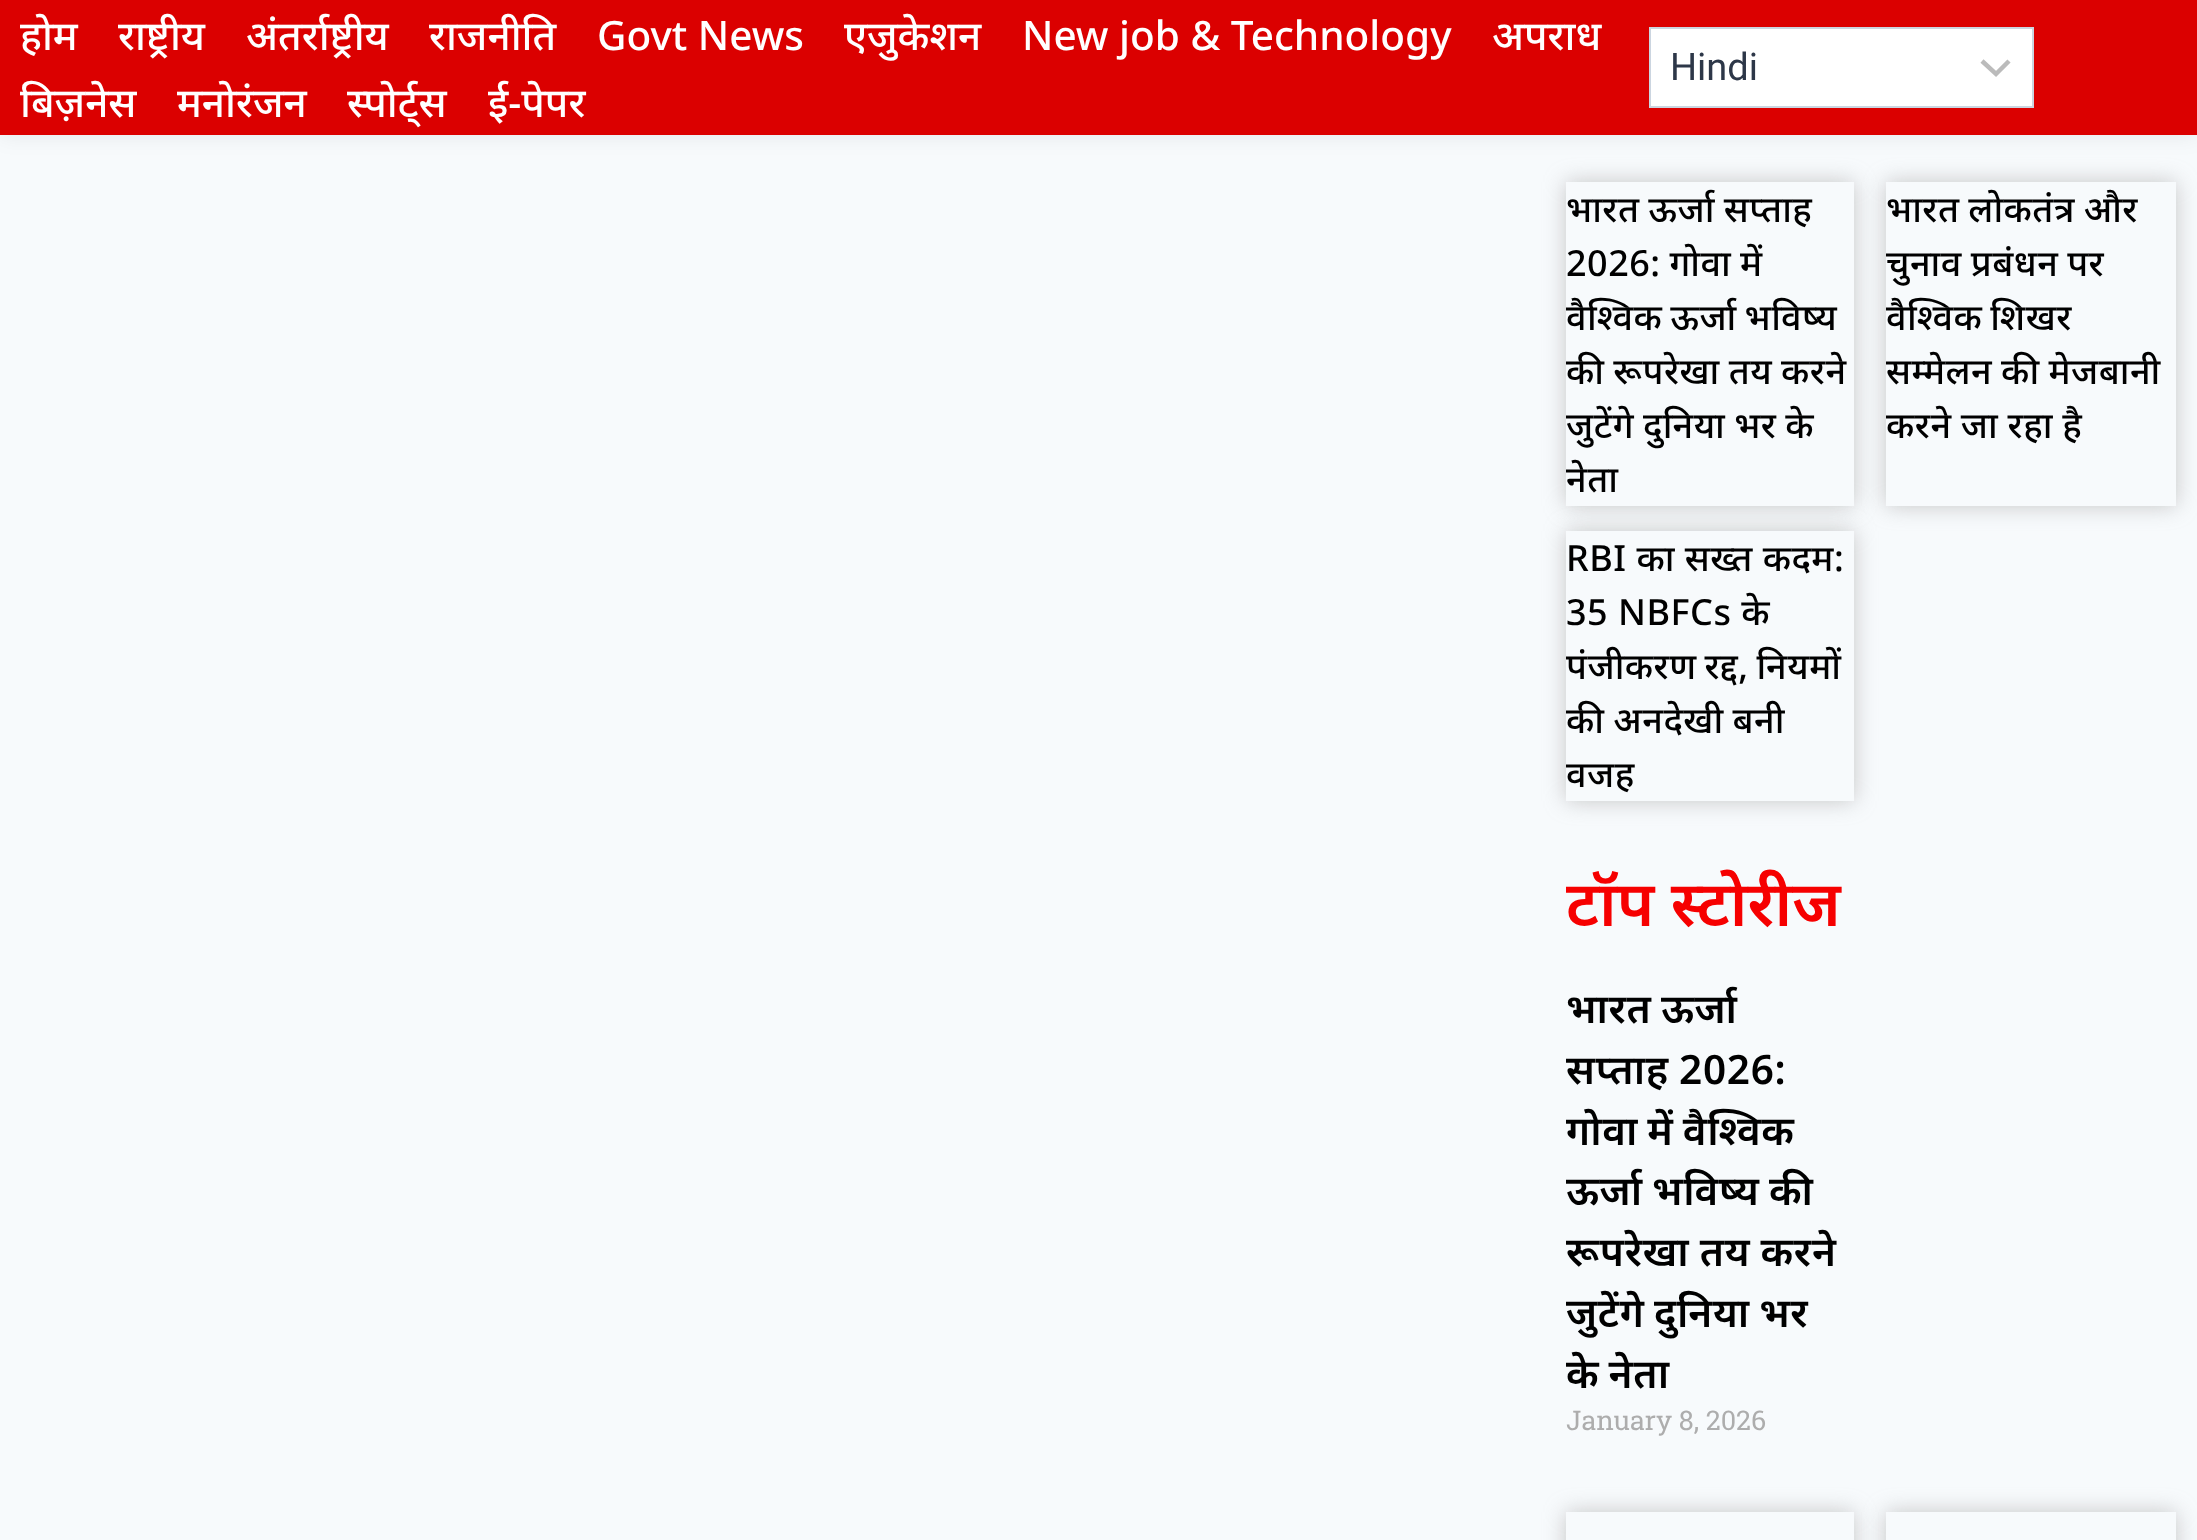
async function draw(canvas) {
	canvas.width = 2197;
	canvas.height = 1540;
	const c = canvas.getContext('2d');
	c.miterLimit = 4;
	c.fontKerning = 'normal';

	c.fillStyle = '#f7fafc';
	c.fillRect(0, 0, 2197, 1540);
	c.fillStyle = '#00000014';
	c.filter = 'blur(11px)';
	c.beginPath();
	c.rect(0, 0, 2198, 135);
	c.fill();
	c.filter = 'none';
	c.fillStyle = '#db0000';
	c.fillRect(0, 0, 2197, 135);
	c.font = '500 40.5px Noto Sans';
	c.fillStyle = '#fff';
	for (const [text, x, y] of [
		['होम', 20, 50],
		['राष्ट्रीय', 118, 50],
		['अंतर्राष्ट्रीय', 246, 50],
		['राजनीति', 429, 50],
		['Govt News', 597, 50],
		['एजुकेशन', 844, 50],
		['New job & Technology', 1022, 50],
		['अपराध', 1492, 50],
		['बिज़नेस', 20, 117],
		['मनोरंजन', 177, 117],
		['स्पोर्ट्स', 347, 117],
		['ई-पेपर', 488, 117],
	]) {
		c.fillText(text, x, y);
	}
	c.fillRect(1651, 29, 381, 77);
	c.beginPath();
	c.moveTo(1982, 61);
	c.lineTo(1996, 74);
	c.lineTo(2009, 61);
	c.strokeStyle = '#bbb';
	c.lineWidth = 4.5;
	c.stroke();
	c.strokeStyle = '#cbd5e0';
	c.lineWidth = 2;
	c.strokeRect(1650, 28, 383, 79);
	c.font = '38px Roboto';
	c.fillStyle = '#2d3748';
	c.fillText('Hindi', 1670, 80);
	c.save();
	c.beginPath();
	c.moveTo(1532, 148);
	c.lineTo(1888, 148);
	c.lineTo(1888, 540);
	c.lineTo(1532, 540);
	c.closePath();
	c.moveTo(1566, 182);
	c.lineTo(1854, 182);
	c.lineTo(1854, 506);
	c.lineTo(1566, 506);
	c.closePath();
	c.clip('evenodd');
	c.fillStyle = '#8e8c8c78';
	c.filter = 'blur(11px)';
	c.beginPath();
	c.rect(1566, 182, 288, 324);
	c.fill();
	c.filter = 'none';
	c.restore();
	c.save();
	c.beginPath();
	c.rect(1566, 182, 288, 324);
	c.clip();
	c.letterSpacing = '0.5px';
	c.wordSpacing = '-1px';
	c.font = '500 36px Noto Sans';
	c.fillStyle = '#000';
	c.fillText('भारत ऊर्जा सप्ताह', 1566, 222);
	c.restore();
	c.letterSpacing = '0.5px';
	c.wordSpacing = '-1px';
	c.font = '500 36px Noto Sans';
	c.fillStyle = '#000';
	c.fillText('2026: गोवा में', 1566, 276);
	c.save();
	c.beginPath();
	c.rect(1566, 182, 288, 324);
	c.clip();
	c.wordSpacing = '-2px';
	c.fillText('वैश्विक ऊर्जा भविष्य', 1566, 330);
	c.wordSpacing = '-1px';
	c.fillText('की रूपरेखा तय करने', 1566, 384);
	c.fillText('जुटेंगे दुनिया भर के', 1566, 438);
	c.wordSpacing = '0px';
	c.fillText('नेता', 1566, 492);
	c.restore();
	c.save();
	c.beginPath();
	c.moveTo(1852, 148);
	c.lineTo(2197, 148);
	c.lineTo(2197, 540);
	c.lineTo(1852, 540);
	c.closePath();
	c.moveTo(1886, 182);
	c.lineTo(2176, 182);
	c.lineTo(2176, 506);
	c.lineTo(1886, 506);
	c.closePath();
	c.clip('evenodd');
	c.fillStyle = '#8e8c8c78';
	c.filter = 'blur(11px)';
	c.beginPath();
	c.rect(1886, 182, 290, 324);
	c.fill();
	c.filter = 'none';
	c.restore();
	c.fillText('भारत लोकतंत्र और', 1886, 222);
	c.save();
	c.beginPath();
	c.rect(1886, 182, 290, 324);
	c.clip();
	c.fillText('चुनाव प्रबंधन पर', 1886, 276);
	c.wordSpacing = '-2px';
	c.fillText('वैश्विक शिखर', 1886, 330);
	c.restore();
	c.fillText('सम्मेलन की मेजबानी', 1886, 384);
	c.wordSpacing = '-0.5px';
	c.fillText('करने जा रहा है', 1886, 438);
	c.save();
	c.beginPath();
	c.moveTo(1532, 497);
	c.lineTo(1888, 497);
	c.lineTo(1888, 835);
	c.lineTo(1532, 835);
	c.closePath();
	c.moveTo(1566, 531);
	c.lineTo(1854, 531);
	c.lineTo(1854, 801);
	c.lineTo(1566, 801);
	c.closePath();
	c.clip('evenodd');
	c.fillStyle = '#8e8c8c78';
	c.filter = 'blur(11px)';
	c.beginPath();
	c.rect(1566, 531, 288, 270);
	c.fill();
	c.filter = 'none';
	c.restore();
	c.wordSpacing = '0px';
	c.fillText('RBI का सख्त कदम:', 1566, 571);
	c.fillText('35 NBFCs के', 1566, 625);
	c.save();
	c.beginPath();
	c.rect(1566, 531, 288, 270);
	c.clip();
	c.wordSpacing = '-2px';
	c.fillText('पंजीकरण रद्द, नियमों', 1566, 679);
	c.wordSpacing = '-1px';
	c.fillText('की अनदेखी बनी', 1566, 733);
	c.wordSpacing = '0px';
	c.fillText('वजह', 1566, 787);
	c.restore();
	c.letterSpacing = '0px';
	c.font = '600 63px Noto Sans';
	c.fillStyle = '#f60000';
	c.fillText('टॉप स्टोरीज', 1566, 926);
	c.save();
	c.beginPath();
	c.rect(1566, 979, 277, 488);
	c.clip();
	c.letterSpacing = '0.7px';
	c.wordSpacing = '-2px';
	c.font = '600 40.5px Noto Sans';
	c.fillStyle = '#000';
	c.fillText('भारत ऊर्जा', 1566, 1023);
	c.wordSpacing = '-1px';
	c.fillText('सप्ताह 2026:', 1566, 1084);
	c.wordSpacing = '-2px';
	c.fillText('गोवा में वैश्विक', 1566, 1145);
	c.fillText('ऊर्जा भविष्य की', 1566, 1205);
	c.wordSpacing = '-1px';
	c.fillText('रूपरेखा तय करने', 1566, 1266);
	c.wordSpacing = '-2px';
	c.fillText('जुटेंगे दुनिया भर', 1566, 1327);
	c.fillText('के नेता', 1566, 1388);
	c.restore();
	c.font = '27px Roboto Slab';
	c.fillStyle = '#adadad';
	c.fillText('January 8, 2026', 1566, 1430);
	c.save();
	c.beginPath();
	c.moveTo(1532, 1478);
	c.lineTo(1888, 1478);
	c.lineTo(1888, 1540);
	c.lineTo(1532, 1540);
	c.closePath();
	c.moveTo(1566, 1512);
	c.lineTo(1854, 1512);
	c.lineTo(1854, 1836);
	c.lineTo(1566, 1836);
	c.closePath();
	c.clip('evenodd');
	c.fillStyle = '#8e8c8c78';
	c.filter = 'blur(11px)';
	c.beginPath();
	c.rect(1566, 1512, 288, 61);
	c.fill();
	c.filter = 'none';
	c.restore();
	c.save();
	c.beginPath();
	c.moveTo(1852, 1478);
	c.lineTo(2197, 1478);
	c.lineTo(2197, 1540);
	c.lineTo(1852, 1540);
	c.closePath();
	c.moveTo(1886, 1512);
	c.lineTo(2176, 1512);
	c.lineTo(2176, 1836);
	c.lineTo(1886, 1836);
	c.closePath();
	c.clip('evenodd');
	c.fillStyle = '#8e8c8c78';
	c.filter = 'blur(11px)';
	c.beginPath();
	c.rect(1886, 1512, 290, 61);
	c.fill();
	c.filter = 'none';
	c.restore();
}

draw(document.querySelector('canvas'));
